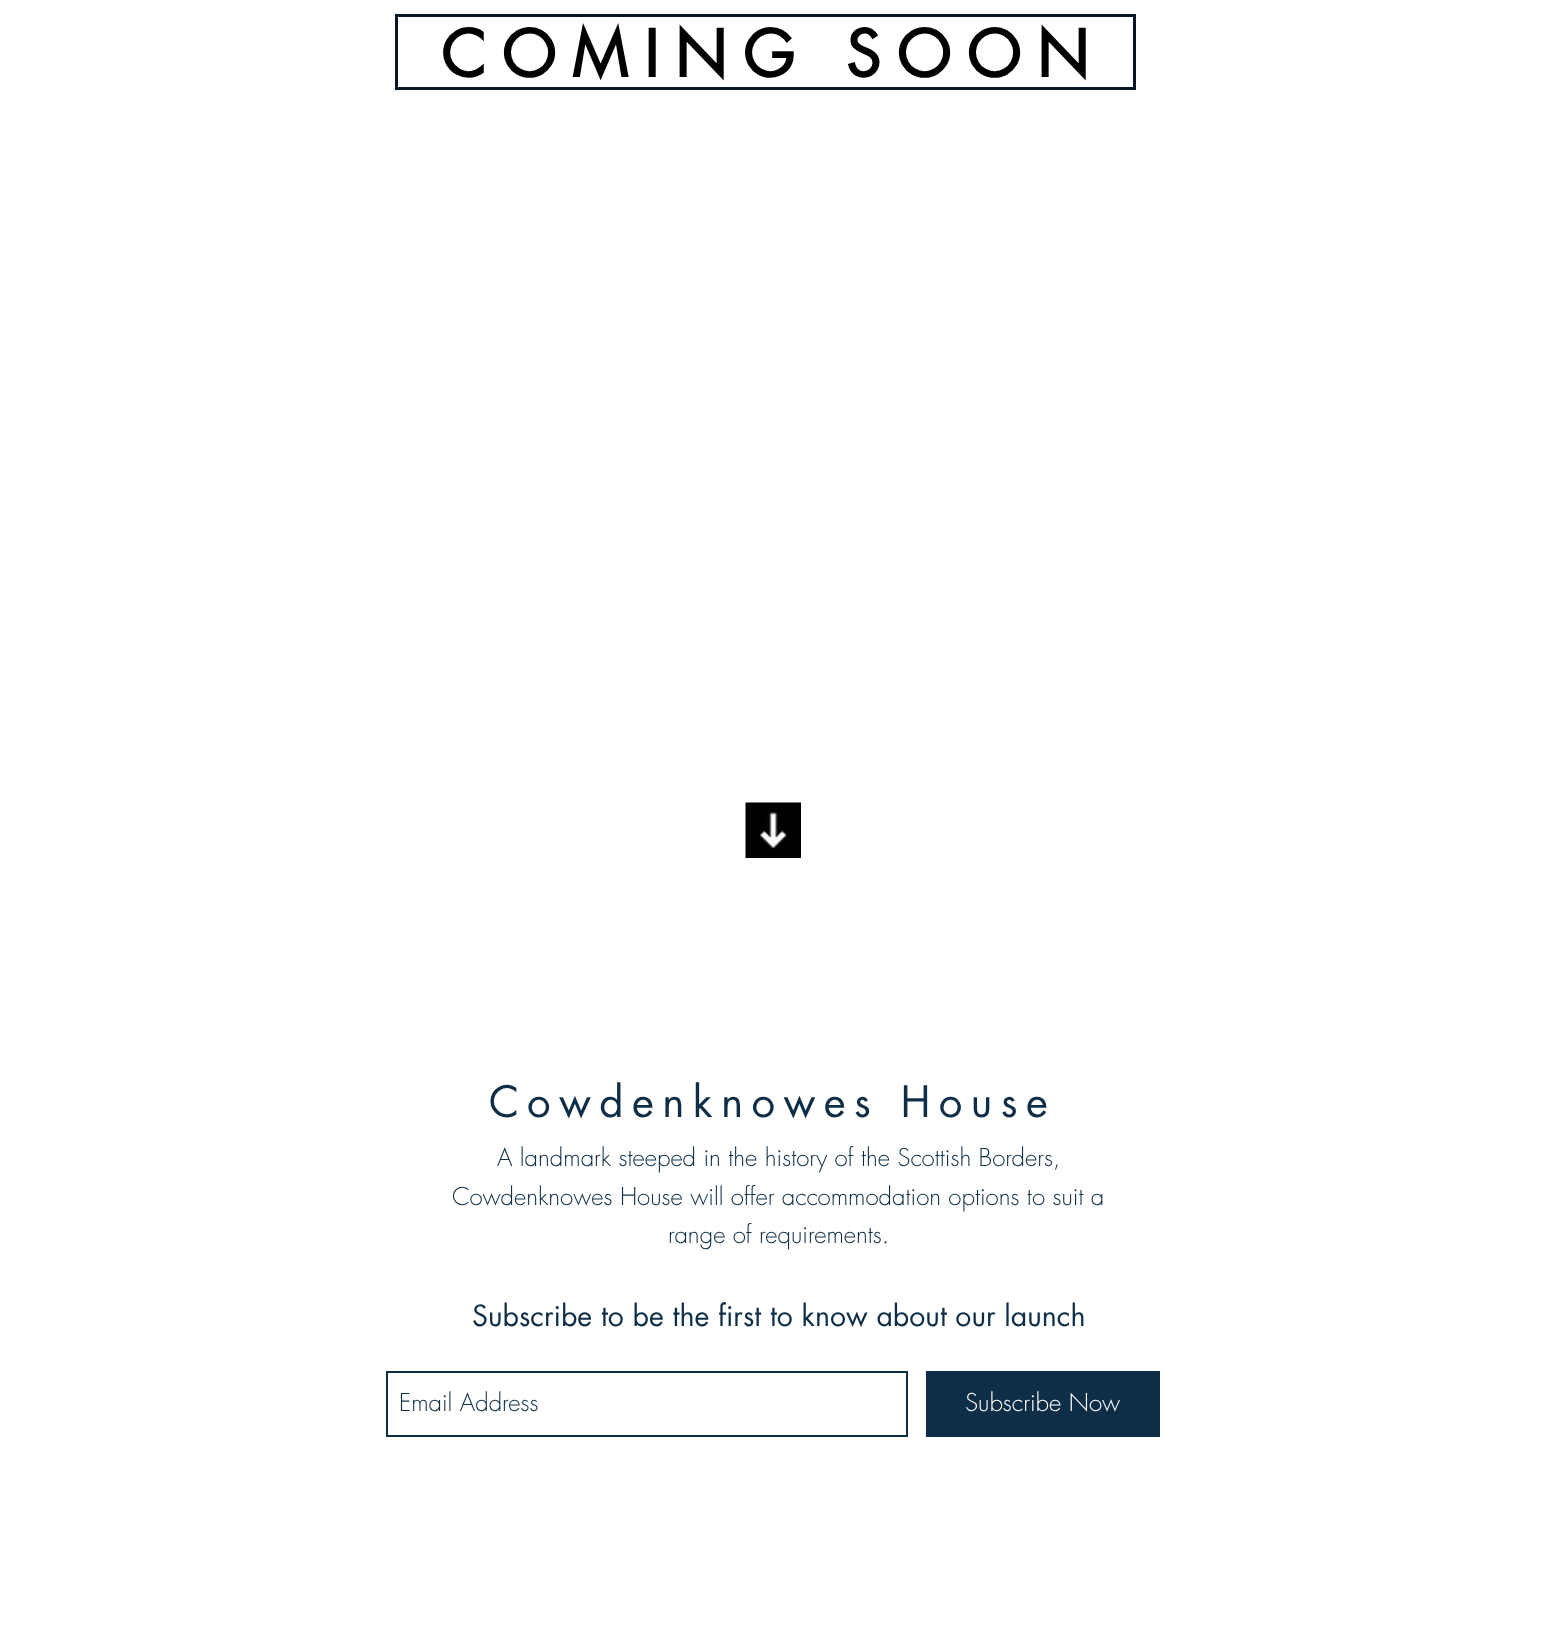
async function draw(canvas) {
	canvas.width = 1556;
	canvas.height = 1633;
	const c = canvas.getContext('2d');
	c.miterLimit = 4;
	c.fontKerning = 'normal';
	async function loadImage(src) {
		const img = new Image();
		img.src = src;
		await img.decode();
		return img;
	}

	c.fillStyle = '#fff';
	c.fillRect(0, 0, 1556, 1633);
	c.strokeStyle = '#081723';
	c.lineWidth = 3;
	c.strokeRect(396.5, 15.5, 738, 73);
	c.letterSpacing = '15.75px';
	c.font = 'bold 63px futura';
	c.fillStyle = '#000';
	c.fillText('COMING SOON', 441, 77);
	c.drawImage(await loadImage('img1.png'), 745, 802, 56, 56);
	c.letterSpacing = '8.4px';
	c.font = '42px futura';
	c.fillStyle = '#0e2e47';
	c.fillText('Cowdenknowes House', 489, 1117);
	c.letterSpacing = '0px';
	c.font = '300 24px futura';
	for (const [text, x, y] of [
		['A landmark steeped in the history of the Scottish Borders,', 497, 1166],
		['Cowdenknowes House will offer accommodation options to suit a', 452, 1205],
		['range of requirements.', 668, 1243],
	]) {
		c.fillText(text, x, y);
	}
	c.font = '28.5px futura';
	c.fillText('Subscribe to be the first to know about our launch', 472, 1326);
	c.strokeStyle = '#0e2e47';
	c.lineWidth = 2;
	c.strokeRect(387, 1372, 520, 64);
	c.font = '300 24px futura';
	c.fillText('Email Address', 399, 1411);
	c.fillRect(926, 1371, 234, 66);
	c.fillStyle = '#fff';
	c.fillText('Subscribe Now', 965, 1411);
}

draw(document.querySelector('canvas'));
